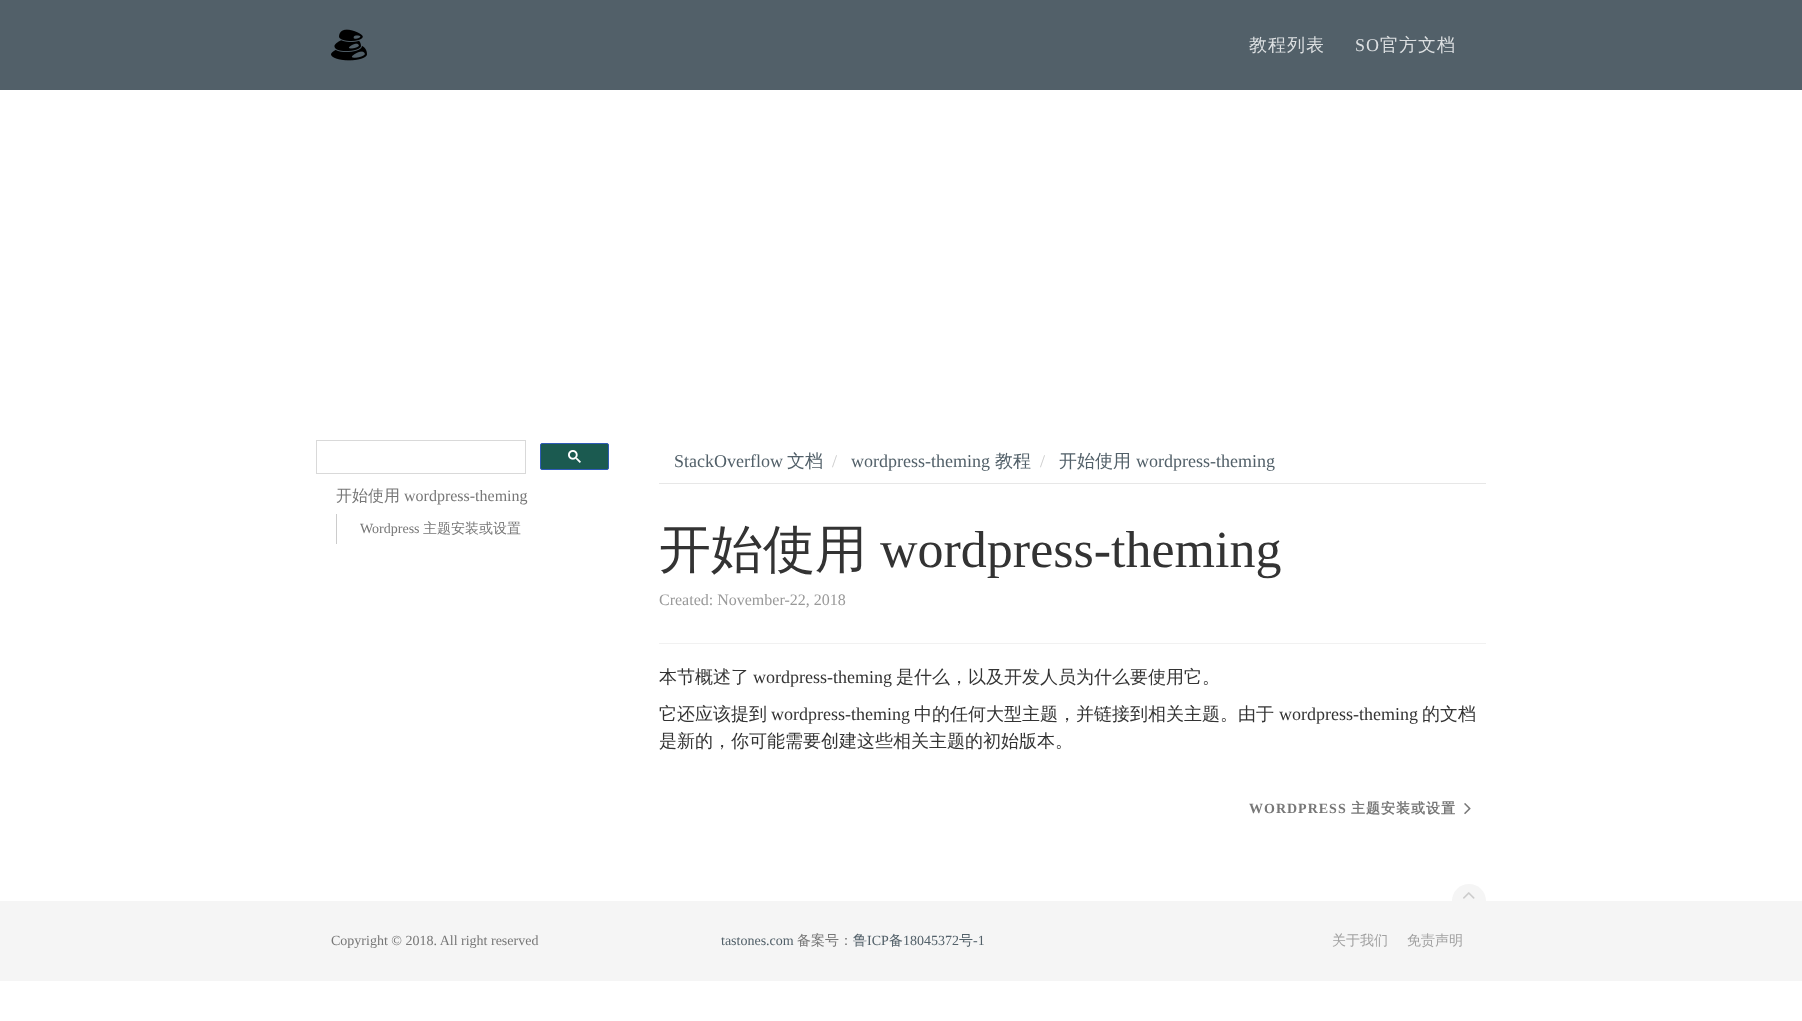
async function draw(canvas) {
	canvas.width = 1802;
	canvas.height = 1021;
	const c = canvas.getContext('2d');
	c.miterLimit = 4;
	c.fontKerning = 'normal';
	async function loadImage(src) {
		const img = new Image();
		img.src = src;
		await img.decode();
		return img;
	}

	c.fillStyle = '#fff';
	c.fillRect(0, 0, 1802, 1021);
	c.fillStyle = '#526069';
	c.fillRect(0, 0, 1802, 90);
	c.drawImage(await loadImage('img1.png'), 331, 29, 36, 32);
	c.letterSpacing = '1px';
	c.font = '500 18px WenQuanYi Zen Hei';
	c.fillStyle = '#dcdfe1';
	c.fillText('教程列表', 1249, 51);
	c.font = '18px Liberation Serif';
	c.fillText('SO', 1355, 51);
	c.font = '500 18px WenQuanYi Zen Hei';
	c.fillText('官方文档', 1380, 51);
	c.strokeStyle = '#d9d9d9';
	c.strokeRect(316.5, 440.5, 209, 33);
	c.fillStyle = '#1b5a50';
	c.beginPath();
	c.roundRect(540.5, 443.5, 68, 26, 1.5);
	c.fill();
	c.strokeStyle = '#2f5bb7';
	c.stroke();
	c.drawImage(await loadImage('img2.png'), 568, 450, 13, 13);
	c.letterSpacing = '0px';
	c.font = '500 16px WenQuanYi Zen Hei';
	c.fillStyle = '#777';
	c.fillText('开始使用', 336, 501);
	c.font = '16px Liberation Serif';
	c.fillText('wordpress-theming', 404, 501);
	c.fillStyle = '#ccc';
	c.fillRect(336, 514, 1, 30);
	c.font = '14px Liberation Serif';
	c.fillStyle = '#777';
	c.fillText('Wordpress', 360, 533);
	c.font = '500 14px WenQuanYi Zen Hei';
	c.fillText('主题安装或设置', 423, 533);
	c.fillStyle = '#e7e7e7';
	c.fillRect(659, 483, 827, 1);
	c.font = '18px Liberation Serif';
	c.fillStyle = '#526069';
	c.fillText('StackOverflow', 674, 467);
	c.font = '500 18px WenQuanYi Zen Hei';
	c.fillText('文档', 787, 467);
	c.font = '18px Liberation Serif';
	c.fillStyle = '#ccc';
	c.fillText('/', 832, 467);
	c.fillStyle = '#526069';
	c.fillText('wordpress-theming', 851, 467);
	c.font = '500 18px WenQuanYi Zen Hei';
	c.fillText('教程', 995, 467);
	c.font = '18px Liberation Serif';
	c.fillStyle = '#ccc';
	c.fillText('/', 1040, 467);
	c.font = '500 18px WenQuanYi Zen Hei';
	c.fillStyle = '#526069';
	c.fillText('开始使用', 1059, 467);
	c.font = '18px Liberation Serif';
	c.fillText('wordpress-theming', 1136, 467);
	c.fillStyle = '#f1f1f1';
	c.fillRect(659, 643, 827, 1);
	c.font = '500 52px WenQuanYi Zen Hei';
	c.fillStyle = '#333';
	c.fillText('开始使用', 659, 567);
	c.font = '52px Liberation Serif';
	c.fillText('wordpress-theming', 880, 567);
	c.font = '16px Liberation Serif';
	c.fillStyle = '#999';
	c.fillText('Created: November-22, 2018', 659, 605);
	c.font = '500 18px WenQuanYi Zen Hei';
	c.fillStyle = '#333';
	c.fillText('本节概述了', 659, 683);
	c.font = '18px Liberation Serif';
	c.fillText('wordpress-theming', 753, 683);
	c.font = '500 18px WenQuanYi Zen Hei';
	c.fillText('是什么，以及开发人员为什么要使用它。', 896, 683);
	c.fillText('它还应该提到', 659, 720);
	c.font = '18px Liberation Serif';
	c.fillText('wordpress-theming', 771, 720);
	c.font = '500 18px WenQuanYi Zen Hei';
	c.fillText('中的任何大型主题，并链接到相关主题。由于', 914, 720);
	c.font = '18px Liberation Serif';
	c.fillText('wordpress-theming', 1279, 720);
	c.font = '500 18px WenQuanYi Zen Hei';
	c.fillText('的文档', 1422, 720);
	c.fillText('是新的，你可能需要创建这些相关主题的初始版本。', 659, 747);
	c.letterSpacing = '1px';
	c.font = 'bold 14px Liberation Serif';
	c.fillStyle = '#777';
	c.fillText('WORDPRESS', 1249, 813);
	c.font = 'bold 14px WenQuanYi Zen Hei';
	c.fillText('主题安装或设置', 1351, 813);
	c.drawImage(await loadImage('img3.png'), 1464, 803, 7, 12);
	c.fillStyle = '#f5f5f5';
	c.fillRect(0, 901, 1802, 80);
	c.beginPath();
	c.arc(1469, 901, 17, 0, 2 * Math.PI);
	c.fill();
	c.drawImage(await loadImage('img4.png'), 1463, 892, 12, 7);
	c.letterSpacing = '0px';
	c.font = '14px Liberation Serif';
	c.fillStyle = '#777';
	c.fillText('Copyright © 2018. All right reserved', 331, 945);
	c.fillStyle = '#526069';
	c.fillText('tastones.com', 721, 945);
	c.font = '500 14px WenQuanYi Zen Hei';
	c.fillStyle = '#777';
	c.fillText('备案号：', 797, 945);
	c.fillStyle = '#526069';
	c.fillText('鲁', 853, 945);
	c.font = '14px Liberation Serif';
	c.fillText('ICP', 867, 945);
	c.font = '500 14px WenQuanYi Zen Hei';
	c.fillText('备', 889, 945);
	c.font = '14px Liberation Serif';
	c.fillText('18045372', 903, 945);
	c.font = '500 14px WenQuanYi Zen Hei';
	c.fillText('号', 959, 945);
	c.font = '14px Liberation Serif';
	c.fillText('-1', 973, 945);
	c.font = '500 14px WenQuanYi Zen Hei';
	c.fillStyle = '#a1a1a1';
	c.fillText('关于我们', 1332, 945);
	c.fillText('免责声明', 1407, 945);
}

draw(document.querySelector('canvas'));
